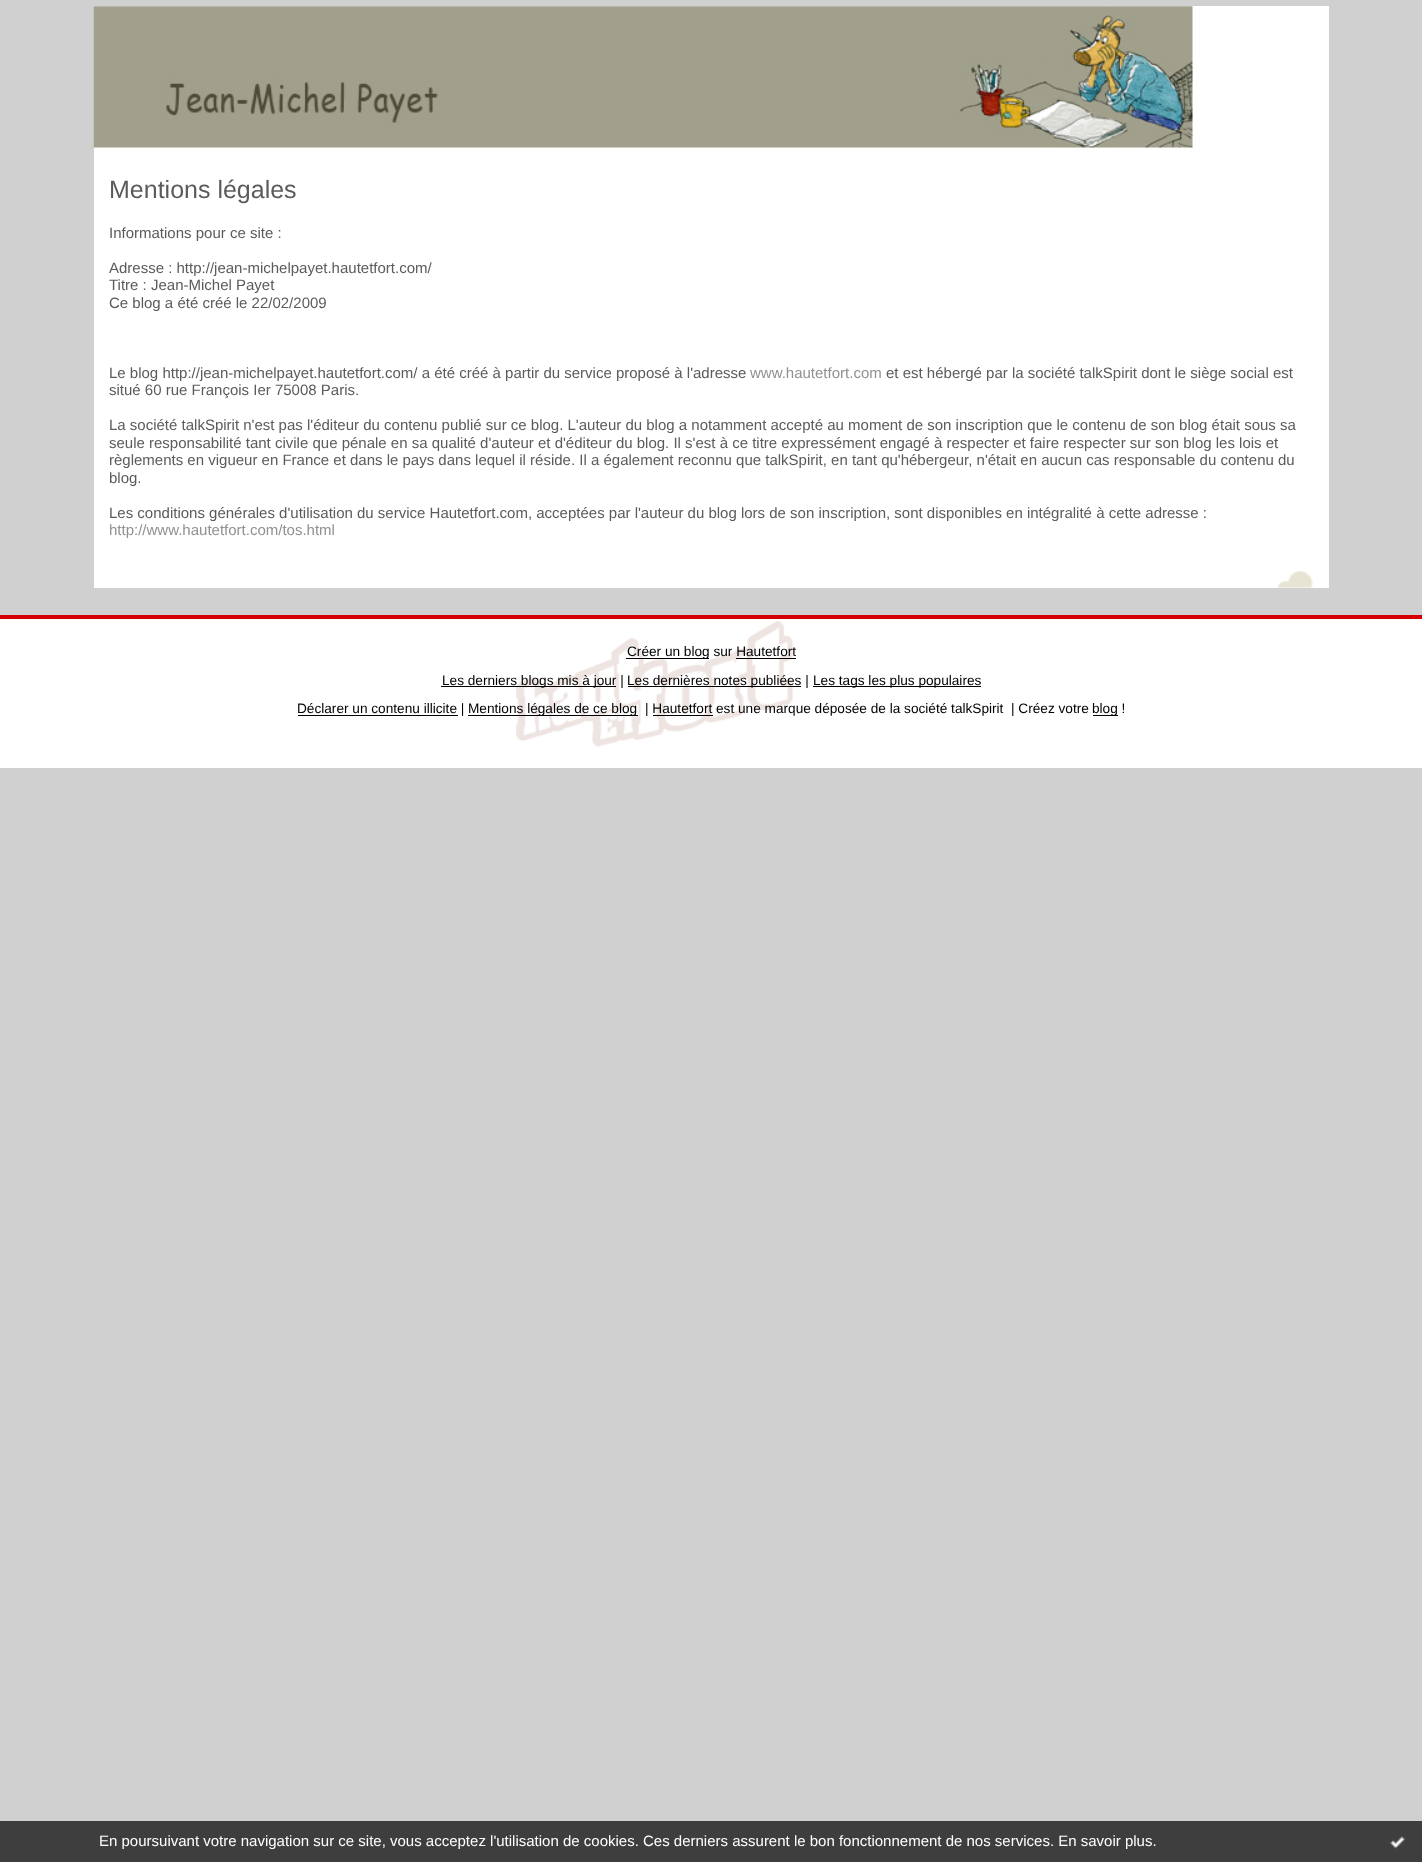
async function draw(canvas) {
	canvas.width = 1422;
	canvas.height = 1862;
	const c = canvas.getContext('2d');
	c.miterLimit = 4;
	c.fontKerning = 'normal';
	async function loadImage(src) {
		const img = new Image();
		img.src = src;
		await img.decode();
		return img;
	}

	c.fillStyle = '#d0d0d0';
	c.fillRect(0, 0, 1422, 1862);
	c.fillStyle = '#fff';
	c.fillRect(94, 6, 1235, 582);
	c.drawImage(await loadImage('img1.png'), 1277, 571, 36, 17);
	c.drawImage(await loadImage('img2.png'), 93, 6, 1100, 142);
	c.font = '25px Liberation Sans';
	c.fillStyle = '#5b5b5b';
	c.fillText('Mentions légales', 109, 198);
	c.font = '15px Liberation Sans';
	for (const [text, x, y] of [
		['Informations pour ce site :', 109, 238],
		['Adresse : http://jean-michelpayet.hautetfort.com/', 109, 273],
		['Titre : Jean-Michel Payet', 109, 290],
		['Ce blog a été créé le 22/02/2009', 109, 308],
		['Le blog http://jean-michelpayet.hautetfort.com/ a été créé à partir du service proposé à l\'adresse', 109, 378],
	]) {
		c.fillText(text, x, y);
	}
	c.fillStyle = '#919191';
	c.fillText('www.hautetfort.com', 750, 378);
	c.fillStyle = '#5b5b5b';
	for (const [text, x, y] of [
		['et est hébergé par la société talkSpirit dont le siège social est', 886, 378],
		['situé 60 rue François Ier 75008 Paris.', 109, 395],
		['La société talkSpirit n\'est pas l\'éditeur du contenu publié sur ce blog. L\'auteur du blog a notamment accepté au moment de son inscription que le contenu de son blog était sous sa', 109, 430],
		['seule responsabilité tant civile que pénale en sa qualité d\'auteur et d\'éditeur du blog. Il s\'est à ce titre expressément engagé à respecter et faire respecter sur son blog les lois et', 109, 448],
		['règlements en vigueur en France et dans le pays dans lequel il réside. Il a également reconnu que talkSpirit, en tant qu\'hébergeur, n\'était en aucun cas responsable du contenu du', 109, 465],
		['blog.', 109, 483],
		['Les conditions générales d\'utilisation du service Hautetfort.com, acceptées par l\'auteur du blog lors de son inscription, sont disponibles en intégralité à cette adresse :', 109, 518],
	]) {
		c.fillText(text, x, y);
	}
	c.fillStyle = '#919191';
	c.fillText('http://www.hautetfort.com/tos.html', 109, 535);
	c.fillStyle = '#fff';
	c.fillRect(0, 619, 1422, 149);
	c.drawImage(await loadImage('img3.png'), 516, 621, 277, 126);
	c.fillStyle = '#d20000';
	c.fillRect(0, 615, 1422, 4);
	c.fillStyle = '#000';
	c.fillRect(626, 658, 83, 1);
	c.font = '13.65px Liberation Sans';
	c.fillText('Créer un blog sur Hautetfort', 627, 656);
	c.fillRect(736, 658, 60, 1);
	c.fillRect(441, 686, 175, 1);
	c.fillText('Les derniers blogs mis à jour |', 442, 685);
	c.fillRect(628, 686, 173, 1);
	c.fillText('Les dernières notes publiées |', 627, 685);
	c.fillRect(813, 686, 168, 1);
	c.fillText('Les tags les plus populaires', 813, 685);
	c.fillRect(298, 715, 160, 1);
	c.fillText('Déclarer un contenu illicite |', 297, 713);
	c.fillRect(468, 715, 170, 1);
	c.fillText('Mentions légales de ce blog', 468, 713);
	c.fillText('| Hautetfort est une marque déposée de la société talkSpirit  | Créez votre', 645, 713);
	c.fillRect(1093, 715, 25, 1);
	c.fillText('blog !', 1092, 713);
	c.fillRect(653, 715, 60, 1);
	c.fillStyle = '#3e3e3e';
	c.fillRect(0, 1821, 1422, 41);
	c.font = '15px Liberation Sans';
	c.fillStyle = '#fff';
	c.fillText('En poursuivant votre navigation sur ce site, vous acceptez l\'utilisation de cookies. Ces derniers assurent le bon fonctionnement de nos services. En savoir plus.', 99, 1846);
	c.drawImage(await loadImage('img4.png'), 1389, 1836, 17, 13);
}

draw(document.querySelector('canvas'));
